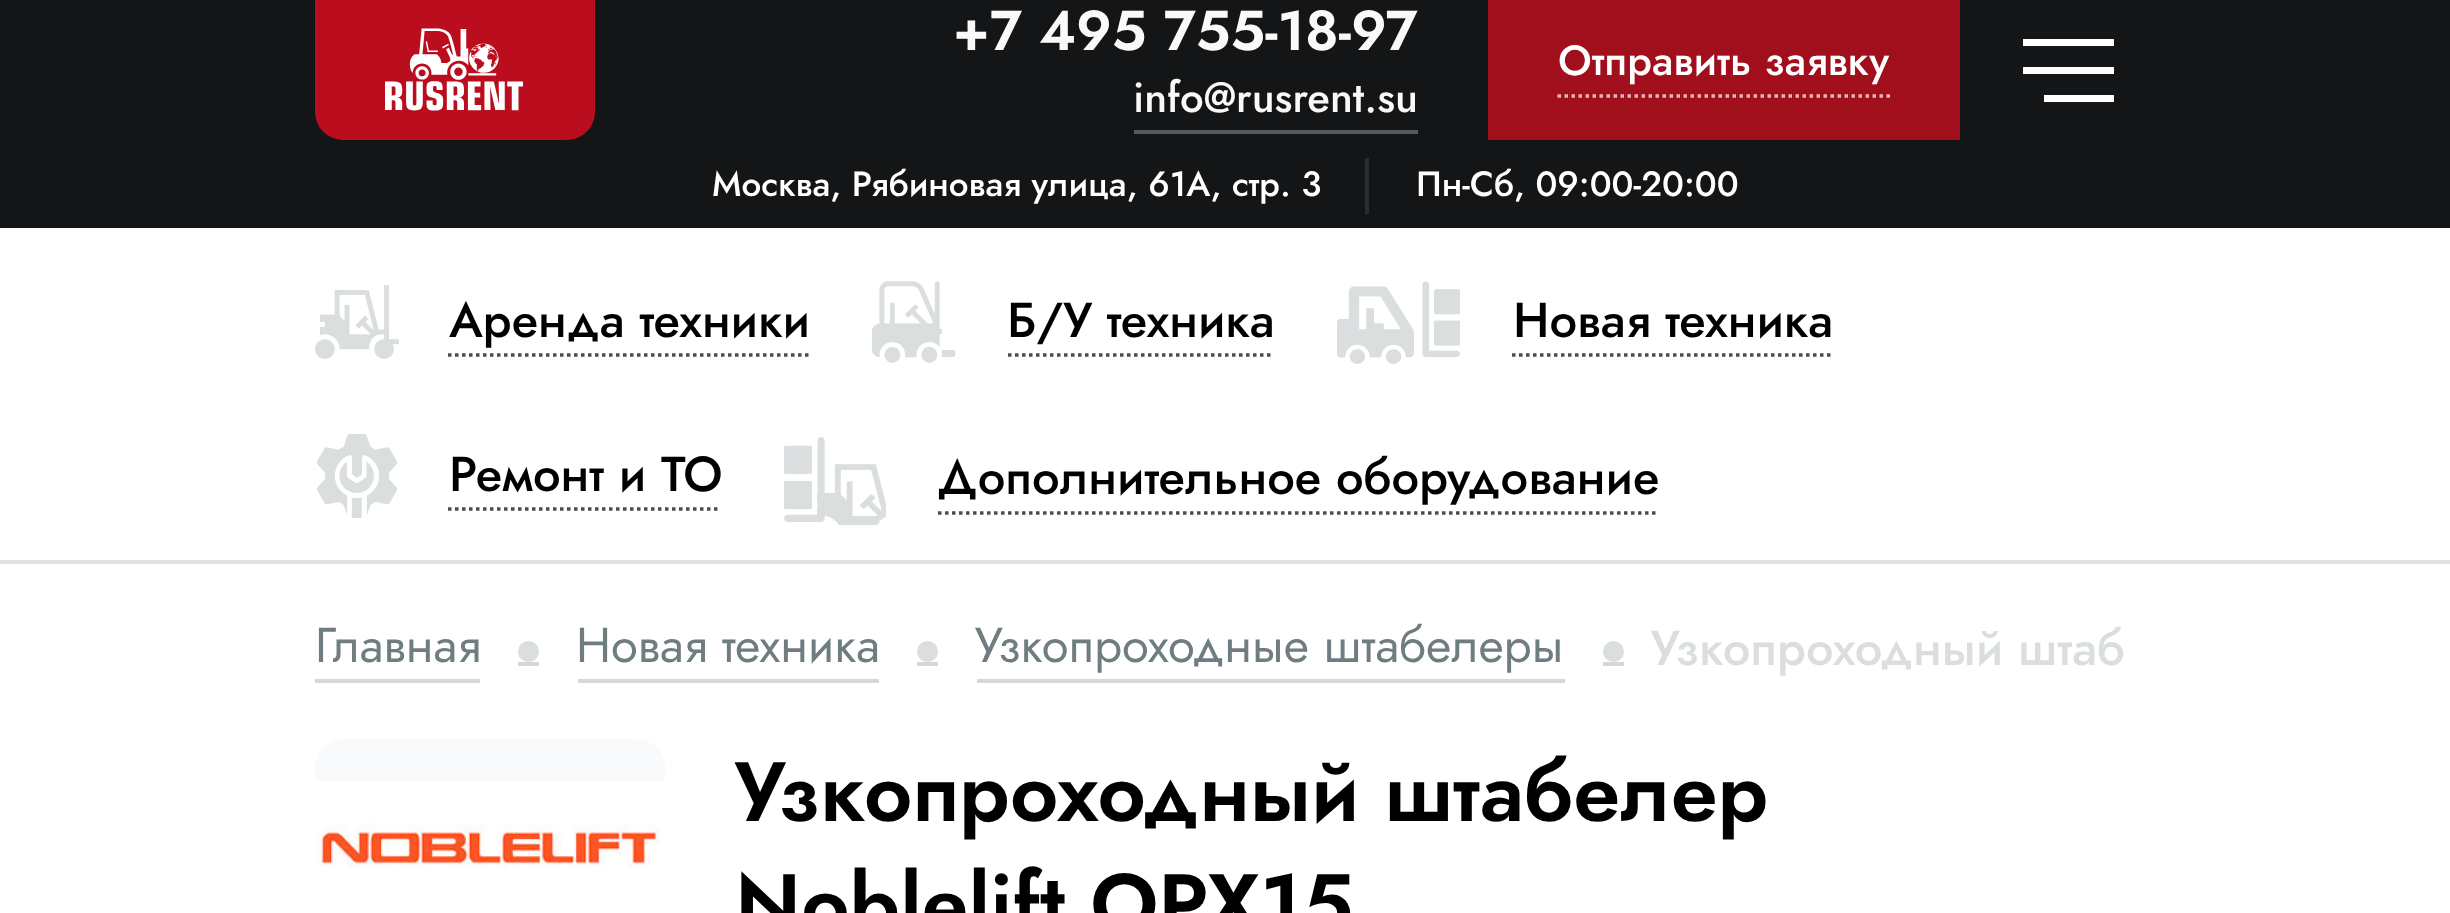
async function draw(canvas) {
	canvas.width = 2450;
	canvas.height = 913;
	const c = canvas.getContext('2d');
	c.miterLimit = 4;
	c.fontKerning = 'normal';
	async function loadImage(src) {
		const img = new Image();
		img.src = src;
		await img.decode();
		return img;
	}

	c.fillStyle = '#fff';
	c.fillRect(0, 0, 2450, 913);
	c.fillStyle = '#e0e3e4';
	c.fillRect(0, 560, 2450, 4);
	c.fillStyle = '#131516';
	c.fillRect(0, 0, 2450, 228);
	c.fillStyle = '#ba0e1e';
	c.beginPath();
	c.roundRect(315, 0, 280, 140, [0, 0, 28, 28]);
	c.fill();
	c.drawImage(await loadImage('img1.png'), 385, 28, 138, 83);
	c.font = '600 56px Jost';
	c.fillStyle = '#faf8f8';
	c.fillText('+7 495 755-18-97', 953, 50);
	c.fillStyle = '#58595a';
	c.fillRect(1134, 130, 284, 4);
	c.font = '500 42px Jost';
	c.fillStyle = '#faf8f8';
	c.fillText('info@rusrent.su', 1133, 112);
	c.fillStyle = '#a10f1d';
	c.fillRect(1488, 0, 472, 140);
	c.fillStyle = '#fff';
	c.fillText('Отправить заявку', 1558, 75);
	c.beginPath();
	c.moveTo(1557.5, 96);
	c.lineTo(1890, 96);
	c.strokeStyle = '#e3b7bb';
	c.lineWidth = 3.5;
	c.setLineDash([3.5, 3.5]);
	c.stroke();
	for (const [x, y, w, h, color] of [
		[2023, 39, 91, 7, '#fff'],
		[2023, 67, 91, 7, '#fff'],
		[2044, 95, 70, 7, '#fff'],
	]) {
		c.fillStyle = color;
		c.fillRect(x, y, w, h);
	}
	c.font = '500 35px Jost';
	c.fillText('Москва, Рябиновая улица, 61А, стр. 3', 712, 196);
	c.fillStyle = '#2b2c2d';
	c.fillRect(1365, 158, 4, 56);
	c.fillStyle = '#fff';
	c.fillText('Пн-Сб, 09:00-20:00', 1416, 196);
	c.drawImage(await loadImage('img2.png'), 315, 285, 84, 74);
	c.font = '500 49px Jost';
	c.fillStyle = '#000';
	c.fillText('Аренда техники', 449, 337);
	c.beginPath();
	c.moveTo(448, 355);
	c.lineTo(808.5, 355);
	c.strokeStyle = '#4d4d4d';
	c.stroke();
	c.drawImage(await loadImage('img3.png'), 872, 281, 84, 82);
	c.fillText('Б/У техника', 1007, 337);
	c.beginPath();
	c.moveTo(1008, 355);
	c.lineTo(1274, 355);
	c.stroke();
	c.drawImage(await loadImage('img4.png'), 1337, 281, 123, 83);
	c.fillText('Новая техника', 1513, 337);
	c.beginPath();
	c.moveTo(1512, 355);
	c.lineTo(1834, 355);
	c.stroke();
	c.drawImage(await loadImage('img5.png'), 316, 434, 82, 84);
	c.fillText('Ремонт и ТО', 449, 491);
	c.beginPath();
	c.moveTo(448, 509);
	c.lineTo(721, 509);
	c.stroke();
	c.drawImage(await loadImage('img6.png'), 784, 437, 102, 88);
	c.fillText('Дополнительное оборудование', 937, 494);
	c.beginPath();
	c.moveTo(938, 513);
	c.lineTo(1659, 513);
	c.stroke();
	c.fillStyle = '#d4d8d9';
	c.fillRect(518, 662, 21, 4);
	c.fillRect(315, 679, 165, 4);
	c.font = '49px Jost';
	c.fillStyle = '#6f7c80';
	c.fillText('Главная', 315, 662);
	c.fillStyle = '#dadedf';
	c.beginPath();
	c.arc(528.5, 651.5, 10.5, 0, 2 * Math.PI);
	c.fill();
	c.fillStyle = '#d4d8d9';
	c.fillRect(917, 662, 21, 4);
	c.fillRect(578, 679, 301, 4);
	c.fillStyle = '#6f7c80';
	c.fillText('Новая техника', 576, 662);
	c.fillStyle = '#dadedf';
	c.beginPath();
	c.arc(927.5, 651.5, 10.5, 0, 2 * Math.PI);
	c.fill();
	c.fillStyle = '#d4d8d9';
	c.fillRect(1603, 662, 21, 4);
	c.fillRect(977, 679, 588, 4);
	c.fillStyle = '#6f7c80';
	c.fillText('Узкопроходные штабелеры', 975, 662);
	c.fillStyle = '#dadedf';
	c.beginPath();
	c.arc(1613.5, 651.5, 10.5, 0, 2 * Math.PI);
	c.fill();
	c.font = '500 49px Jost';
	c.fillText('Узкопроходный штаб', 1651, 665);
	c.fillStyle = '#f8fafc';
	c.beginPath();
	c.roundRect(315, 739, 350, 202, 28);
	c.fill();
	c.drawImage(await loadImage('img7.png'), 315, 781, 350, 132);
	c.font = '600 84px Jost';
	c.fillStyle = '#000';
	c.fillText('Узкопроходный штабелер', 735, 821);
	c.fillText('Noblelift OPX15', 735, 933);
}

draw(document.querySelector('canvas'));
